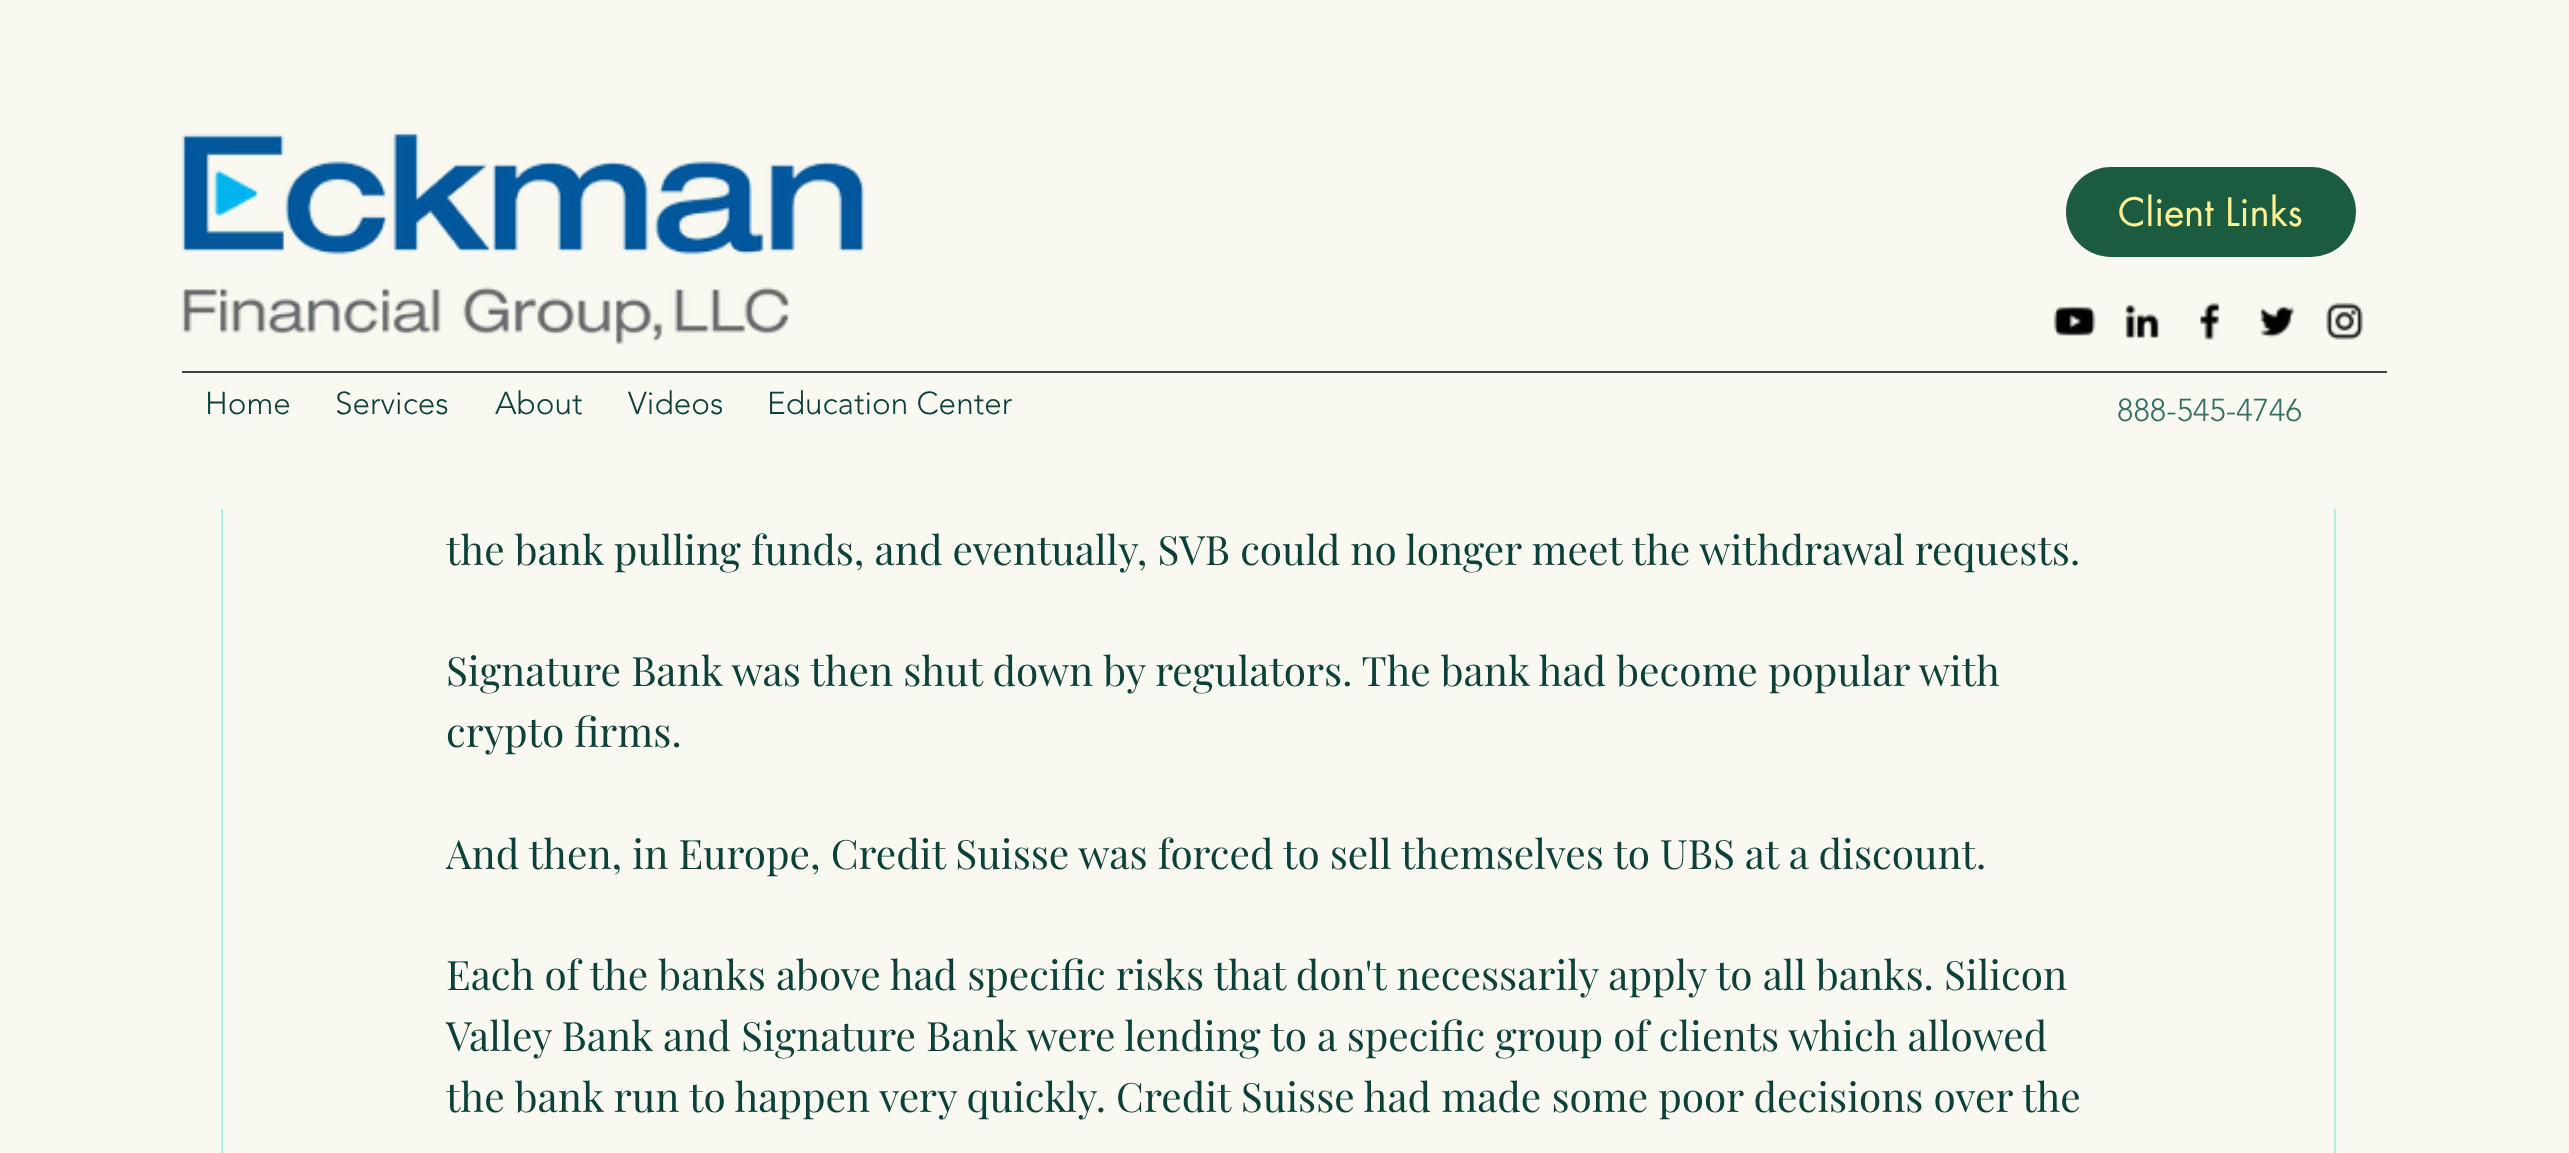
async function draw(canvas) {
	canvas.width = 2569;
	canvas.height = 1153;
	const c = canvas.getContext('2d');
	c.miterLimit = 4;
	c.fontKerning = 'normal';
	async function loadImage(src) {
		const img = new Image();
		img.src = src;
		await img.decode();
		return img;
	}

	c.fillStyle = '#f9f9f1';
	c.fillRect(0, 0, 2569, 1153);
	c.strokeStyle = '#b0efe4';
	c.lineWidth = 2;
	c.strokeRect(222, -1, 2113, 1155);
	c.fillRect(221, 0, 2115, 509);
	c.drawImage(await loadImage('img1.png'), 181, 132, 684, 213);
	c.fillStyle = '#1b5b3f';
	c.beginPath();
	c.roundRect(2066, 167, 290, 90, 45);
	c.fill();
	c.font = '38.25px futura';
	c.fillStyle = '#fff094';
	c.fillText('Client Links', 2118, 226);
	c.drawImage(await loadImage('img2.png'), 2053, 306, 43, 30);
	c.drawImage(await loadImage('img3.png'), 2125, 304, 35, 35);
	c.drawImage(await loadImage('img4.png'), 2200, 302, 21, 39);
	c.drawImage(await loadImage('img5.png'), 2259, 305, 37, 33);
	c.drawImage(await loadImage('img6.png'), 2326, 302, 38, 38);
	c.fillStyle = '#424242';
	c.fillRect(182, 371, 2205, 2);
	c.font = '300 31.5px "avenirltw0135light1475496"';
	c.fillStyle = '#0c4139';
	for (const [text, x, y] of [
		['Home', 205, 414],
		['Services', 335, 414],
		['About', 495, 414],
		['Videos', 628, 414],
		['Education Center', 767, 414],
	]) {
		c.fillText(text, x, y);
	}
	c.fillStyle = '#326e62';
	c.fillText('888-545-4746', 2117, 421);
	c.font = '40.5px Playfair Display';
	c.fillStyle = '#0c4139';
	for (const [text, x, y] of [
		['the bank pulling funds, and eventually, SVB could no longer meet the withdrawal requests.', 446, 565],
		['Signature Bank was then shut down by regulators. The bank had become popular with', 446, 686],
		['crypto firms.', 446, 747],
		['And then, in Europe, Credit Suisse was forced to sell themselves to UBS at a discount.', 446, 869],
		['Each of the banks above had specific risks that don\'t necessarily apply to all banks. Silicon', 446, 990],
		['Valley Bank and Signature Bank were lending to a specific group of clients which allowed', 446, 1051],
		['the bank run to happen very quickly. Credit Suisse had made some poor decisions over the', 446, 1112],
	]) {
		c.fillText(text, x, y);
	}
}

draw(document.querySelector('canvas'));
